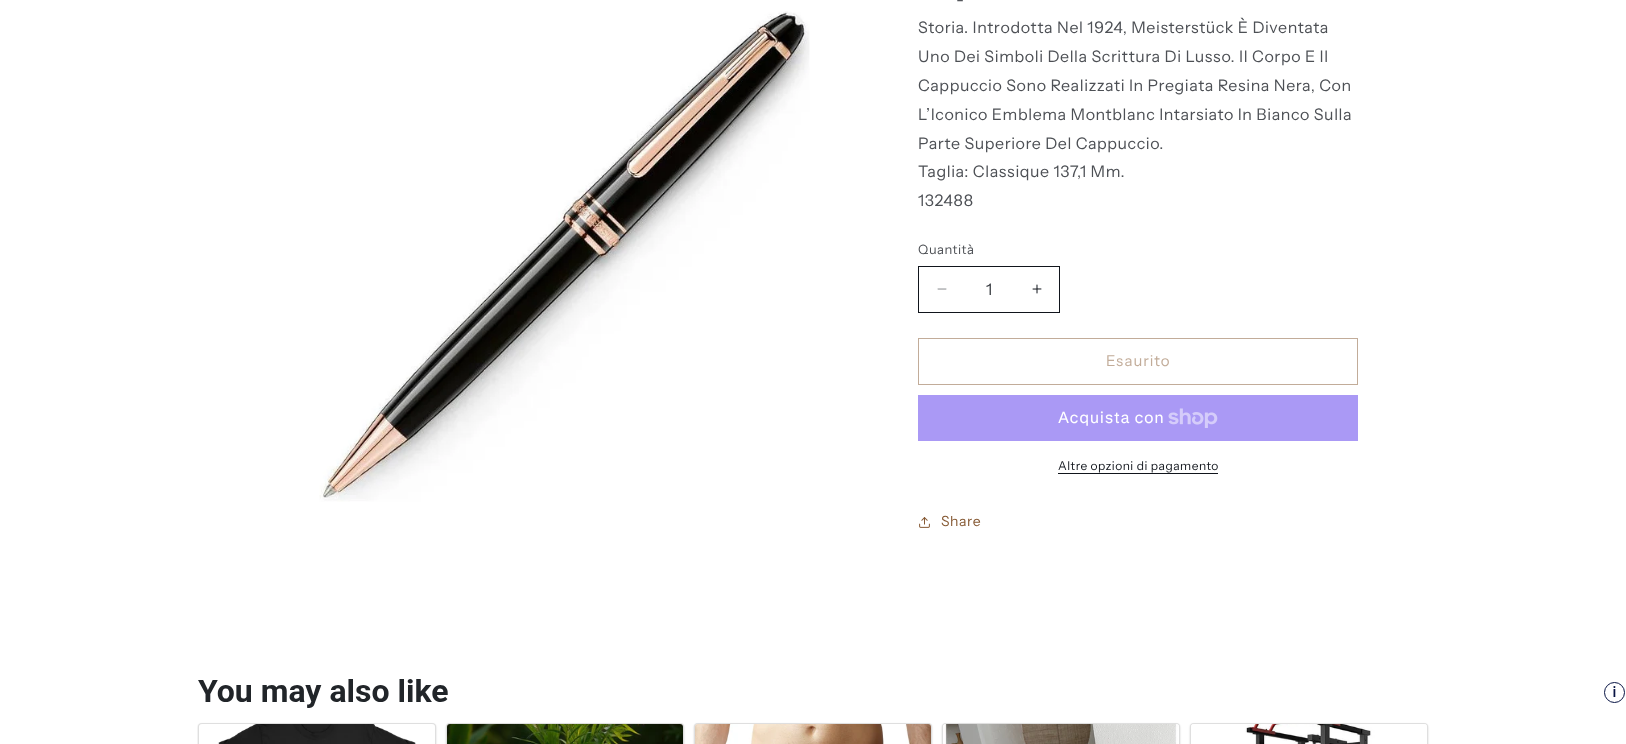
async function draw(canvas) {
	canvas.width = 1626;
	canvas.height = 744;
	const c = canvas.getContext('2d');
	c.miterLimit = 4;
	c.fontKerning = 'normal';
	async function loadImage(src) {
		const img = new Image();
		img.src = src;
		await img.decode();
		return img;
	}

	c.fillStyle = '#fff';
	c.fillRect(0, 0, 1626, 744);
	c.drawImage(await loadImage('img1.png'), 319, 11, 491, 491);
	c.letterSpacing = '0.6px';
	c.font = '16px Instrument Sans';
	c.fillStyle = '#4d5055';
	for (const [text, x, y] of [
		['-', 956, 5],
		['Storia. Introdotta Nel 1924, Meisterstück È Diventata', 918, 33],
		['Uno Dei Simboli Della Scrittura Di Lusso. Il Corpo E Il', 918, 62],
		['Cappuccio Sono Realizzati In Pregiata Resina Nera, Con', 918, 91],
		['L’Iconico Emblema Montblanc Intarsiato In Bianco Sulla', 918, 120],
		['Parte Superiore Del Cappuccio.', 918, 149],
		['Taglia: Classique 137,1 Mm.', 918, 177],
		['132488', 918, 206],
	]) {
		c.fillText(text, x, y);
	}
	c.letterSpacing = '0.5px';
	c.font = '13px Instrument Sans';
	c.fillText('Quantità', 918, 254);
	c.drawImage(await loadImage('img2.png'), 937, 288, 10, 2);
	c.drawImage(await loadImage('img3.png'), 1032, 284, 10, 10);
	c.strokeStyle = '#11151c';
	c.strokeRect(918.5, 266.5, 141, 46);
	c.letterSpacing = '0px';
	c.font = '16px Instrument Sans';
	c.fillStyle = '#35383e';
	c.fillText('1', 986, 295);
	c.strokeStyle = '#c2ac99';
	c.strokeRect(918.5, 338.5, 439, 46);
	c.letterSpacing = '1px';
	c.font = '15px Instrument Sans';
	c.fillStyle = '#c2ac99';
	c.fillText('Esaurito', 1106, 366);
	c.fillStyle = '#aa99f5';
	c.fillRect(918, 395, 440, 46);
	c.letterSpacing = '0.6px';
	c.font = '16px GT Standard';
	c.fillStyle = '#fff';
	c.fillText('Acquista con', 1058, 423);
	c.drawImage(await loadImage('img4.png'), 1168, 408, 50, 20);
	c.letterSpacing = '0.5px';
	c.font = '12px Instrument Sans';
	c.fillStyle = '#11151c';
	c.fillText('Altre opzioni di pagamento', 1058, 470);
	c.fillRect(1058, 473, 160, 1);
	c.drawImage(await loadImage('img5.png'), 919, 517, 11, 11);
	c.letterSpacing = '0.6px';
	c.font = '14px Instrument Sans';
	c.fillStyle = '#855832';
	c.fillText('Share', 941, 526);
	c.drawImage(await loadImage('img6.png'), 197, 679, 1428, 65);
}

draw(document.querySelector('canvas'));
